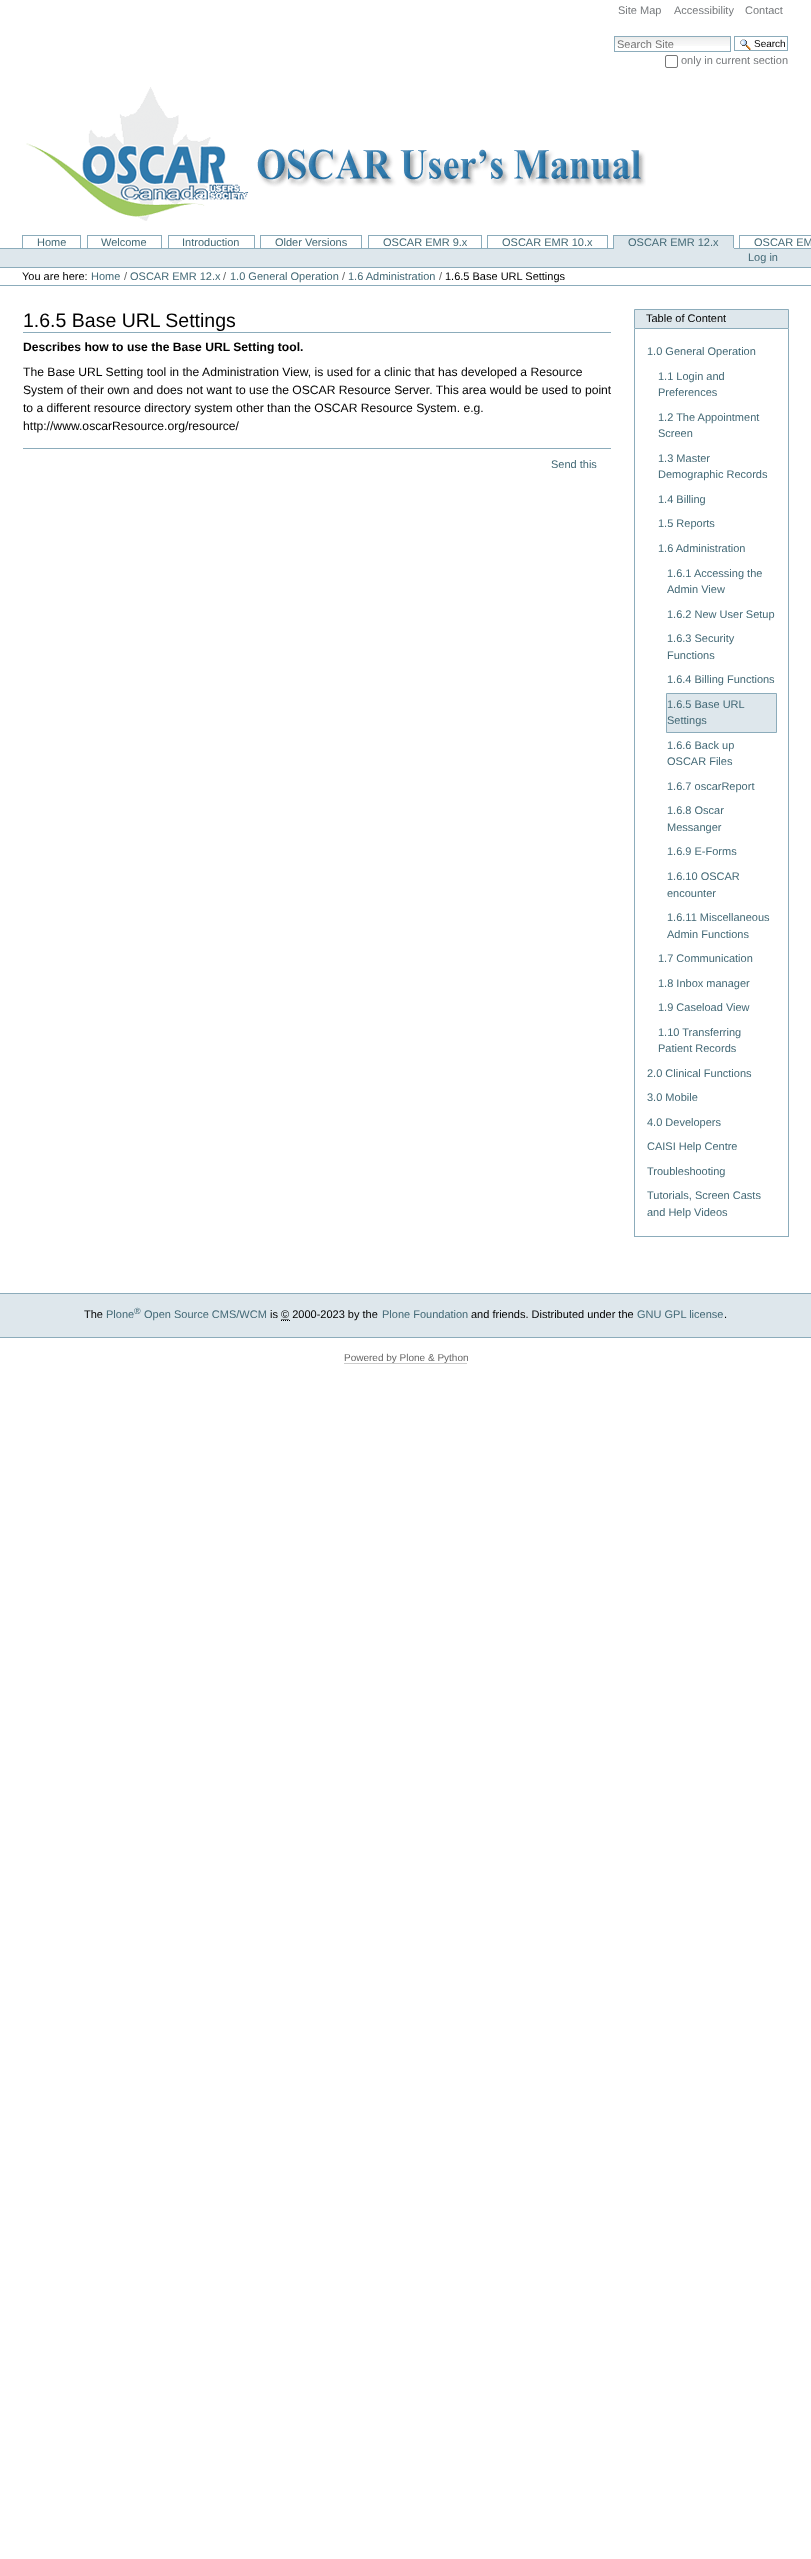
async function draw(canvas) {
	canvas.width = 811;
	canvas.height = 2559;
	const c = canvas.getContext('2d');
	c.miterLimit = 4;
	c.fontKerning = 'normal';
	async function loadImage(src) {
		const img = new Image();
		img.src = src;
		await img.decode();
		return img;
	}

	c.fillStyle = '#fff';
	c.fillRect(0, 0, 811, 2559);
	c.font = '11px Liberation Sans';
	c.fillStyle = '#76797c';
	for (const [text, x, y] of [
		['Site Map', 618, 14],
		['Accessibility', 674, 14],
		['Contact', 745, 14],
	]) {
		c.fillText(text, x, y);
	}
	c.drawImage(await loadImage('img1.png'), 615, 37, 115, 9);
	c.strokeStyle = '#8cacbb';
	c.strokeRect(614.5, 36.5, 116, 15);
	c.fillStyle = '#757575';
	c.fillText('Search Site', 617, 48);
	c.drawImage(await loadImage('img2.png'), 740, 39, 11, 11);
	c.strokeRect(734.5, 36.5, 53, 14);
	c.font = '10px Liberation Sans';
	c.fillStyle = '#000';
	c.fillText('Search', 754, 47);
	c.beginPath();
	c.roundRect(665.5, 55.5, 12, 12, 1.5);
	c.strokeStyle = '#767676';
	c.stroke();
	c.font = '11px Liberation Sans';
	c.fillStyle = '#76797c';
	c.fillText('only in current section', 681, 64);
	c.drawImage(await loadImage('img3.png'), 26, 87, 620, 134);
	c.fillStyle = '#436976';
	c.fillText('Home', 37, 246);
	for (const [x, y, w, h, color] of [
		[22, 235, 59, 1, '#8cacbb'],
		[80, 235, 1, 13, '#8cacbb'],
		[22, 235, 1, 13, '#8cacbb'],
	]) {
		c.fillStyle = color;
		c.fillRect(x, y, w, h);
	}
	c.fillStyle = '#436976';
	c.fillText('Welcome', 101, 246);
	for (const [x, y, w, h, color] of [
		[87, 235, 75, 1, '#8cacbb'],
		[161, 235, 1, 13, '#8cacbb'],
		[87, 235, 1, 13, '#8cacbb'],
	]) {
		c.fillStyle = color;
		c.fillRect(x, y, w, h);
	}
	c.fillStyle = '#436976';
	c.fillText('Introduction', 182, 246);
	for (const [x, y, w, h, color] of [
		[168, 235, 87, 1, '#8cacbb'],
		[254, 235, 1, 13, '#8cacbb'],
		[168, 235, 1, 13, '#8cacbb'],
	]) {
		c.fillStyle = color;
		c.fillRect(x, y, w, h);
	}
	c.fillStyle = '#436976';
	c.fillText('Older Versions', 275, 246);
	for (const [x, y, w, h, color] of [
		[260, 235, 102, 1, '#8cacbb'],
		[361, 235, 1, 13, '#8cacbb'],
		[260, 235, 1, 13, '#8cacbb'],
	]) {
		c.fillStyle = color;
		c.fillRect(x, y, w, h);
	}
	c.fillStyle = '#436976';
	c.fillText('OSCAR EMR 9.x', 383, 246);
	for (const [x, y, w, h, color] of [
		[368, 235, 114, 1, '#8cacbb'],
		[481, 235, 1, 13, '#8cacbb'],
		[368, 235, 1, 13, '#8cacbb'],
	]) {
		c.fillStyle = color;
		c.fillRect(x, y, w, h);
	}
	c.fillStyle = '#436976';
	c.fillText('OSCAR EMR 10.x', 502, 246);
	for (const [x, y, w, h, color] of [
		[487, 235, 121, 1, '#8cacbb'],
		[607, 235, 1, 13, '#8cacbb'],
		[487, 235, 1, 13, '#8cacbb'],
		[614, 236, 119, 12, '#dee7ec'],
	]) {
		c.fillStyle = color;
		c.fillRect(x, y, w, h);
	}
	c.fillStyle = '#436976';
	c.fillText('OSCAR EMR 12.x', 628, 246);
	for (const [x, y, w, h, color] of [
		[613, 235, 121, 1, '#8cacbb'],
		[0, 248, 811, 1, '#8cacbb'],
		[733, 235, 1, 14, '#8cacbb'],
		[613, 248, 121, 1, '#dee7ec'],
		[613, 235, 1, 14, '#8cacbb'],
	]) {
		c.fillStyle = color;
		c.fillRect(x, y, w, h);
	}
	c.fillStyle = '#436976';
	c.fillText('OSCAR EM', 754, 246);
	for (const [x, y, w, h, color] of [
		[739, 235, 72, 1, '#8cacbb'],
		[739, 235, 1, 13, '#8cacbb'],
		[0, 249, 811, 18, '#dee7ec'],
		[0, 267, 811, 1, '#8cacbb'],
	]) {
		c.fillStyle = color;
		c.fillRect(x, y, w, h);
	}
	c.fillStyle = '#436976';
	c.fillText('Log in', 748, 261);
	c.fillStyle = '#8cacbb';
	c.fillRect(0, 285, 811, 1);
	c.fillStyle = '#000';
	c.fillText('You are here:', 22, 280);
	c.fillStyle = '#436976';
	c.fillText('Home', 91, 280);
	c.fillStyle = '#666';
	c.fillText('/', 124, 280);
	c.fillStyle = '#436976';
	c.fillText('OSCAR EMR 12.x', 130, 280);
	c.fillStyle = '#666';
	c.fillText('/', 223, 280);
	c.fillStyle = '#436976';
	c.fillText('1.0 General Operation', 230, 280);
	c.fillStyle = '#666';
	c.fillText('/', 342, 280);
	c.fillStyle = '#436976';
	c.fillText('1.6 Administration', 348, 280);
	c.fillStyle = '#666';
	c.fillText('/', 439, 280);
	c.fillStyle = '#000';
	c.fillText('1.6.5 Base URL Settings', 445, 280);
	c.fillStyle = '#8cacbb';
	c.fillRect(23, 332, 588, 1);
	c.font = '19.5px Liberation Sans';
	c.fillStyle = '#000';
	c.fillText('1.6.5 Base URL Settings', 23, 327);
	c.font = 'bold 12.15px Liberation Sans';
	c.fillText('Describes how to use the Base URL Setting tool.', 23, 351);
	c.font = '12.15px Liberation Sans';
	for (const [text, x, y] of [
		['The Base URL Setting tool in the Administration View, is used for a clinic that has developed a Resource', 23, 376],
		['System of their own and does not want to use the OSCAR Resource Server. This area would be used to point', 23, 394],
		['to a different resource directory system other than the OSCAR Resource System. e.g.', 23, 412],
		['http://www.oscarResource.org/resource/', 23, 430],
	]) {
		c.fillText(text, x, y);
	}
	c.fillStyle = '#8cacbb';
	c.fillRect(23, 448, 588, 1);
	c.font = '11px Liberation Sans';
	c.fillStyle = '#436976';
	c.fillText('Send this', 551, 468);
	c.fillStyle = '#8cacbb';
	c.fillRect(634, 1236, 155, 1);
	c.fillStyle = '#dee7ec';
	c.beginPath();
	c.rect(634.5, 309.5, 154, 19);
	c.fill();
	c.strokeStyle = '#8cacbb';
	c.stroke();
	c.fillStyle = '#000';
	c.fillText('Table of Content', 646, 322);
	c.fillStyle = '#8cacbb';
	c.fillRect(788, 329, 1, 907);
	c.fillRect(634, 329, 1, 907);
	c.fillStyle = '#436976';
	for (const [text, x, y] of [
		['1.0 General Operation', 647, 355],
		['1.1 Login and', 658, 380],
		['Preferences', 658, 396],
		['1.2 The Appointment', 658, 421],
		['Screen', 658, 437],
		['1.3 Master', 658, 462],
		['Demographic Records', 658, 478],
		['1.4 Billing', 658, 503],
		['1.5 Reports', 658, 527],
		['1.6 Administration', 658, 552],
		['1.6.1 Accessing the', 667, 577],
		['Admin View', 667, 593],
		['1.6.2 New User Setup', 667, 618],
		['1.6.3 Security', 667, 642],
		['Functions', 667, 659],
		['1.6.4 Billing Functions', 667, 683],
	]) {
		c.fillText(text, x, y);
	}
	c.fillStyle = '#dee7ec';
	c.beginPath();
	c.rect(666.5, 693.5, 110, 39);
	c.fill();
	c.stroke();
	c.fillStyle = '#436976';
	for (const [text, x, y] of [
		['1.6.5 Base URL', 667, 708],
		['Settings', 667, 724],
		['1.6.6 Back up', 667, 749],
		['OSCAR Files', 667, 765],
		['1.6.7 oscarReport', 667, 790],
		['1.6.8 Oscar', 667, 814],
		['Messanger', 667, 831],
		['1.6.9 E-Forms', 667, 855],
		['1.6.10 OSCAR', 667, 880],
		['encounter', 667, 897],
		['1.6.11 Miscellaneous', 667, 921],
		['Admin Functions', 667, 938],
		['1.7 Communication', 658, 962],
		['1.8 Inbox manager', 658, 987],
		['1.9 Caseload View', 658, 1011],
		['1.10 Transferring', 658, 1036],
		['Patient Records', 658, 1052],
		['2.0 Clinical Functions', 647, 1077],
		['3.0 Mobile', 647, 1101],
		['4.0 Developers', 647, 1126],
		['CAISI Help Centre', 647, 1150],
		['Troubleshooting', 647, 1175],
		['Tutorials, Screen Casts', 647, 1199],
		['and Help Videos', 647, 1216],
	]) {
		c.fillText(text, x, y);
	}
	for (const [x, y, w, h, color] of [
		[0, 1294, 811, 43, '#dee7ec'],
		[0, 1293, 811, 1, '#8cacbb'],
		[0, 1337, 811, 1, '#8cacbb'],
	]) {
		c.fillStyle = color;
		c.fillRect(x, y, w, h);
	}
	c.fillStyle = '#000';
	c.fillText('The', 84, 1318);
	c.fillStyle = '#436976';
	c.fillText('Plone', 106, 1318);
	c.font = '9px Liberation Sans';
	c.fillText('®', 134, 1314);
	c.font = '11px Liberation Sans';
	c.fillText('Open Source CMS/WCM', 144, 1318);
	c.fillStyle = '#000';
	c.fillText('is © 2000-2023 by the', 270, 1318);
	c.fillStyle = '#436976';
	c.fillText('Plone Foundation', 382, 1318);
	c.fillStyle = '#000';
	c.fillText('and friends. Distributed under the', 471, 1318);
	c.fillStyle = '#436976';
	c.fillText('GNU GPL license', 637, 1318);
	c.fillStyle = '#000';
	c.fillText('.', 724, 1318);
	c.beginPath();
	c.moveTo(281, 1320.5);
	c.lineTo(290, 1320.5);
	c.moveTo(281.5, 1319.5);
	c.lineTo(289.5, 1319.5);
	c.strokeStyle = '#000';
	c.setLineDash([1, 1]);
	c.stroke();
	c.fillStyle = '#ccc';
	c.fillRect(344, 1363, 123, 1);
	c.font = '10px Liberation Sans';
	c.fillStyle = '#666';
	c.fillText('Powered by Plone & Python', 344, 1361);
}

draw(document.querySelector('canvas'));
